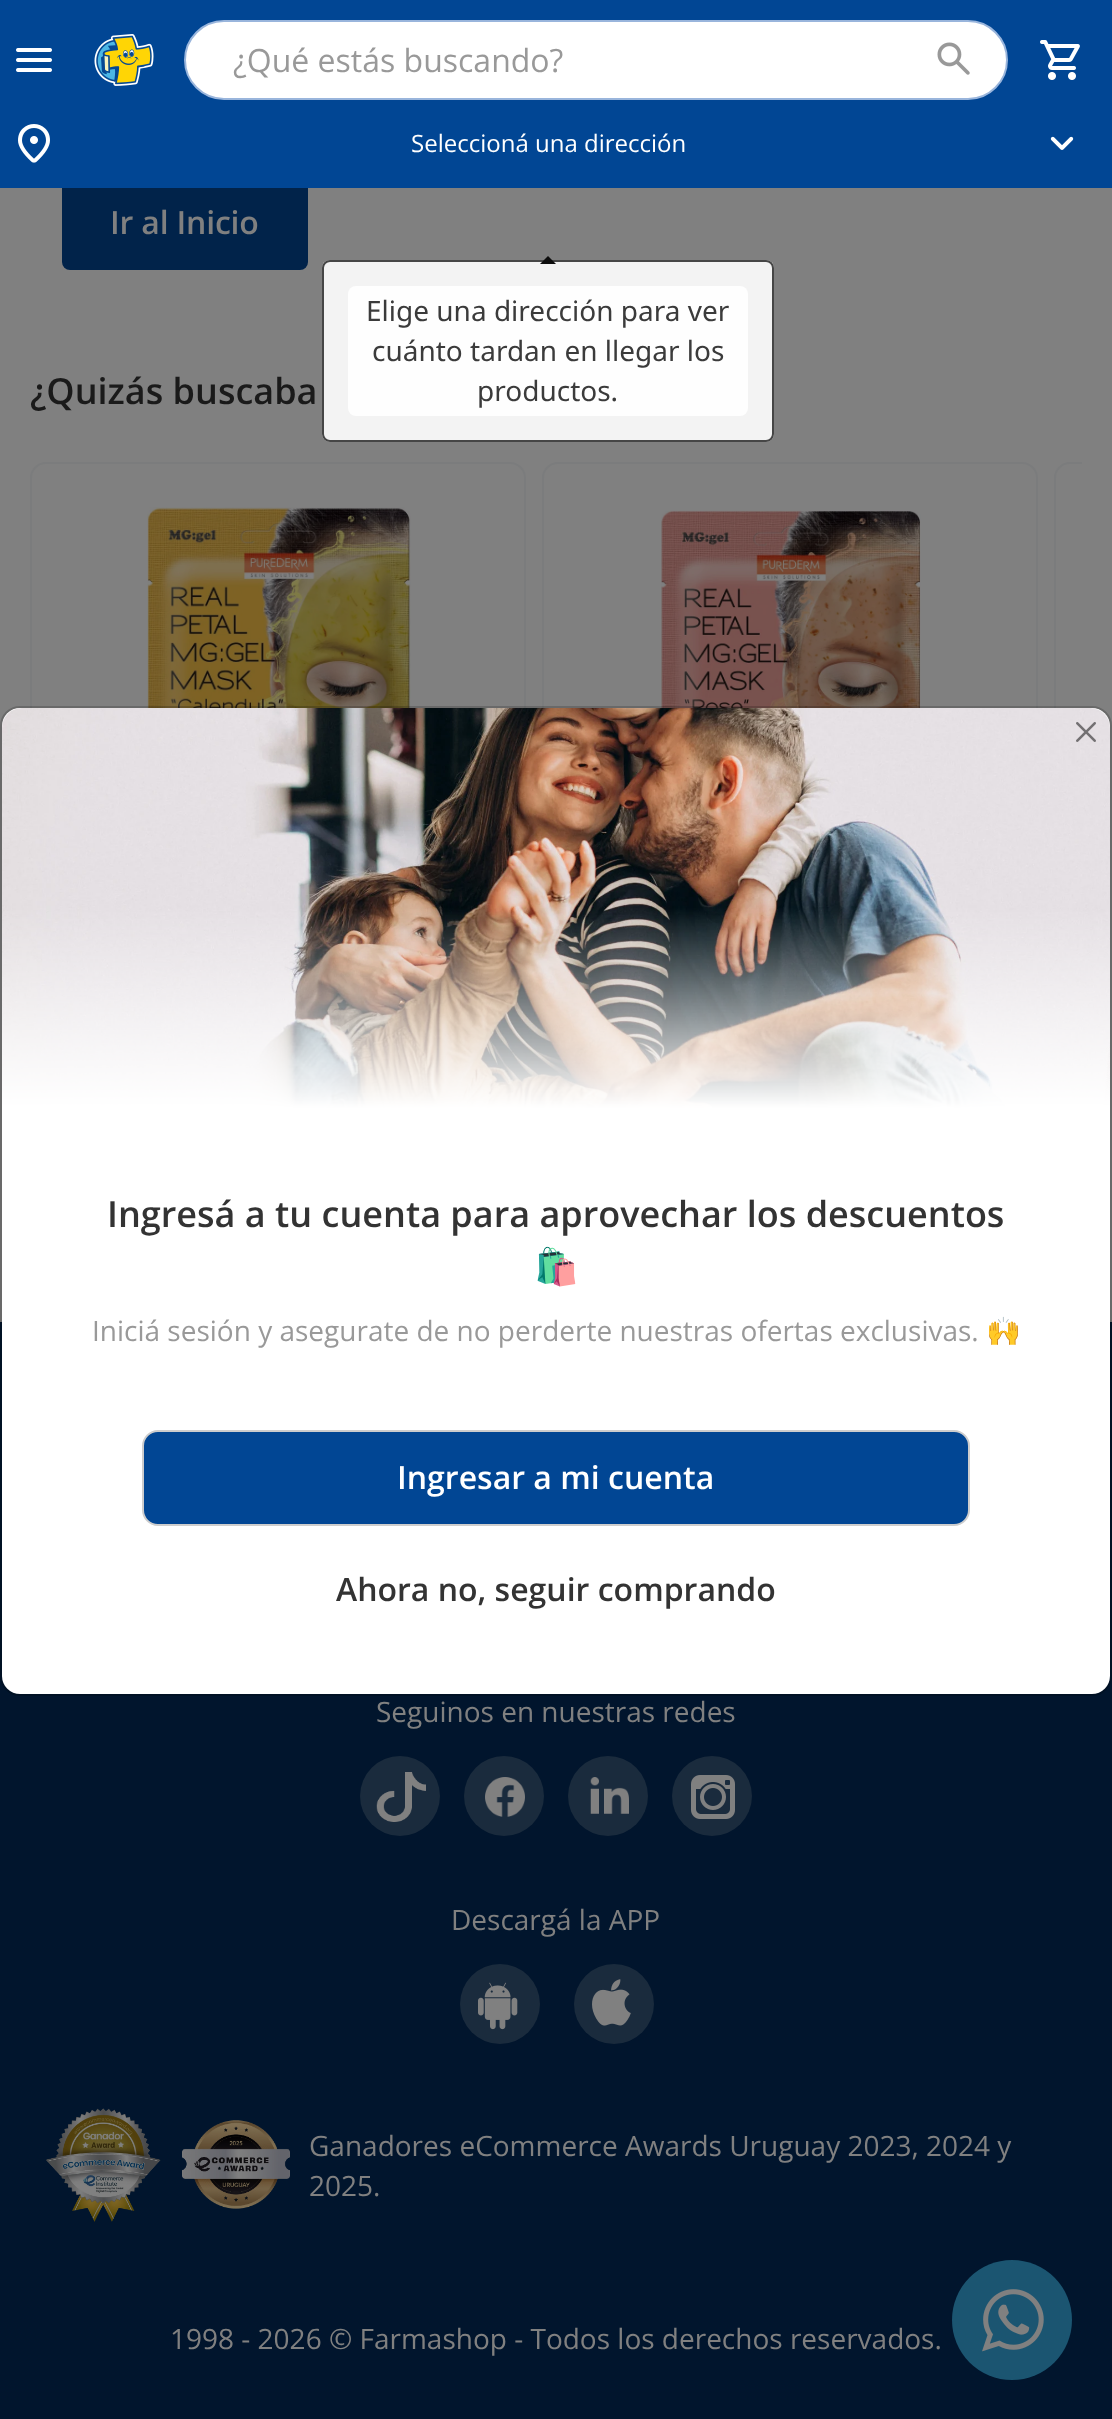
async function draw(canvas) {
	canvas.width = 1112;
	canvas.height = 2419;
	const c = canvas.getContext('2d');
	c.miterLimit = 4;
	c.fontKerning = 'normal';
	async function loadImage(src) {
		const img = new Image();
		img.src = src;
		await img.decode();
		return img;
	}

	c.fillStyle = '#808080';
	c.fillRect(0, 0, 1112, 2419);
	c.fillStyle = '#01234a';
	c.beginPath();
	c.roundRect(62, 174, 246, 96, 8);
	c.fill();
	c.fillStyle = '#014694';
	c.fillRect(0, 0, 1112, 188);
	c.drawImage(await loadImage('img1.png'), 16, 48, 36, 24);
	c.drawImage(await loadImage('img2.png'), 94, 34, 60, 52);
	c.fillStyle = '#fff';
	c.beginPath();
	c.roundRect(185, 21, 822, 78, 39);
	c.fill();
	c.strokeStyle = '#99b5dc';
	c.lineWidth = 2;
	c.stroke();
	c.font = '32px Open Sans';
	c.fillStyle = '#999';
	c.fillText('¿Qué estás buscando?', 233, 72);
	c.drawImage(await loadImage('img3.png'), 937, 42, 33, 33);
	c.drawImage(await loadImage('img4.png'), 1040, 40, 40, 40);
	c.drawImage(await loadImage('img5.png'), 18, 124, 32, 39);
	c.font = '24px Open Sans';
	c.fillStyle = '#fff';
	c.fillText('Seleccioná una dirección', 411, 152);
	c.drawImage(await loadImage('img6.png'), 1050, 136, 24, 14);
	c.letterSpacing = '-0.2px';
	c.font = '600 32px Open Sans';
	c.fillStyle = '#808080';
	c.fillText('Ir al Inicio', 110, 234);
	c.letterSpacing = '0px';
	c.font = '600 36px Open Sans';
	c.fillStyle = '#1a1a1a';
	c.fillText('¿Quizás buscaba', 30, 404);
	c.beginPath();
	c.roundRect(31, 463, 494, 730, 15);
	c.strokeStyle = '#7b7c7d';
	c.stroke();
	c.drawImage(await loadImage('img7.png'), 147, 507, 264, 201);
	c.beginPath();
	c.roundRect(543, 463, 494, 730, 15);
	c.stroke();
	c.drawImage(await loadImage('img8.png'), 661, 510, 260, 198);
	c.save();
	c.beginPath();
	c.rect(30, 462, 1052, 732);
	c.clip();
	c.beginPath();
	c.roundRect(1055, 463, 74, 730, 15);
	c.stroke();
	c.restore();
	c.fillStyle = '#01152d';
	c.fillRect(0, 1322, 1112, 1097);
	c.fillStyle = '#fff';
	c.beginPath();
	c.roundRect(2, 708, 1108, 986, 18);
	c.fill();
	c.beginPath();
	c.roundRect(1, 707, 1110, 988, 19);
	c.strokeStyle = '#0000002e';
	c.stroke();
	c.drawImage(await loadImage('img9.png'), 2, 708, 1108, 400);
	c.drawImage(await loadImage('img10.png'), 1076, 722, 20, 20);
	c.fillStyle = '#333';
	c.fillText('Ingresá a tu cuenta para aprovechar los descuentos', 107, 1227);
	c.font = 'bold 36px Noto Color Emoji';
	c.fillText('🛍️', 534, 1279);
	c.font = '28px Open Sans';
	c.fillStyle = '#999';
	c.fillText('Iniciá sesión y asegurate de no perderte nuestras ofertas exclusivas.', 92, 1341);
	c.font = '28px Noto Color Emoji';
	c.fillText('🙌', 986, 1341);
	c.fillStyle = '#014694';
	c.beginPath();
	c.roundRect(143, 1431, 826, 94, 15);
	c.fill();
	c.strokeStyle = '#cdcdcd';
	c.stroke();
	c.font = '600 32px Open Sans';
	c.fillStyle = '#fff';
	c.fillText('Ingresar a mi cuenta', 397, 1489);
	c.fillStyle = '#333';
	c.fillText('Ahora no, seguir comprando', 336, 1601);
	c.font = '28px Open Sans';
	c.fillStyle = '#808080';
	c.fillText('Seguinos en nuestras redes', 376, 1722);
	c.fillStyle = '#1a2b3d';
	c.beginPath();
	c.arc(400, 1796, 40, 0, 2 * Math.PI);
	c.fill();
	c.drawImage(await loadImage('img11.png'), 376, 1772, 50, 50);
	c.beginPath();
	c.arc(504, 1796, 40, 0, 2 * Math.PI);
	c.fill();
	c.drawImage(await loadImage('img12.png'), 485, 1777, 40, 40);
	c.beginPath();
	c.arc(608, 1796, 40, 0, 2 * Math.PI);
	c.fill();
	c.drawImage(await loadImage('img13.png'), 590, 1777, 39, 37);
	c.beginPath();
	c.arc(712, 1796, 40, 0, 2 * Math.PI);
	c.fill();
	c.drawImage(await loadImage('img14.png'), 691, 1775, 44, 44);
	c.fillStyle = '#808080';
	c.fillText('Descargá la APP', 451, 1930);
	c.fillStyle = '#1a2b3d';
	c.beginPath();
	c.arc(500, 2004, 40, 0, 2 * Math.PI);
	c.fill();
	c.drawImage(await loadImage('img15.png'), 478, 1982, 40, 48);
	c.beginPath();
	c.arc(614, 2004, 40, 0, 2 * Math.PI);
	c.fill();
	c.drawImage(await loadImage('img16.png'), 592, 1979, 39, 47);
	c.drawImage(await loadImage('img17.png'), 46, 2108, 115, 114);
	c.drawImage(await loadImage('img18.png'), 182, 2120, 108, 89);
	c.fillStyle = '#808080';
	for (const [text, x, y] of [
		['Ganadores eCommerce Awards Uruguay 2023, 2024 y', 309, 2156],
		['2025.', 309, 2196],
		['1998 - 2026 © Farmashop - Todos los derechos reservados.', 170, 2349],
	]) {
		c.fillText(text, x, y);
	}
	c.fillStyle = '#1b5571';
	c.beginPath();
	c.arc(1012, 2320, 60, 0, 2 * Math.PI);
	c.fill();
	c.drawImage(await loadImage('img19.png'), 982, 2289, 62, 63);
	c.fillStyle = '#ffffffe6';
	c.beginPath();
	c.roundRect(322, 260, 452, 182, 8);
	c.fill();
	c.beginPath();
	c.roundRect(323, 261, 450, 180, 7);
	c.strokeStyle = '#333333e6';
	c.stroke();
	c.fillStyle = '#0d0d0d';
	c.beginPath();
	c.moveTo(556, 264);
	c.lineTo(540, 264);
	c.lineTo(548, 256);
	c.closePath();
	c.fill();
	c.fillStyle = '#ffffffe6';
	c.beginPath();
	c.roundRect(348, 286, 400, 130, 8);
	c.fill();
	c.font = '28px Noto Sans';
	c.fillStyle = '#3b3b3b';
	for (const [text, x, y] of [
		['Elige una dirección para ver', 366, 321],
		['cuánto tardan en llegar los', 372, 361],
		['productos.', 477, 401],
	]) {
		c.fillText(text, x, y);
	}
}

draw(document.querySelector('canvas'));
